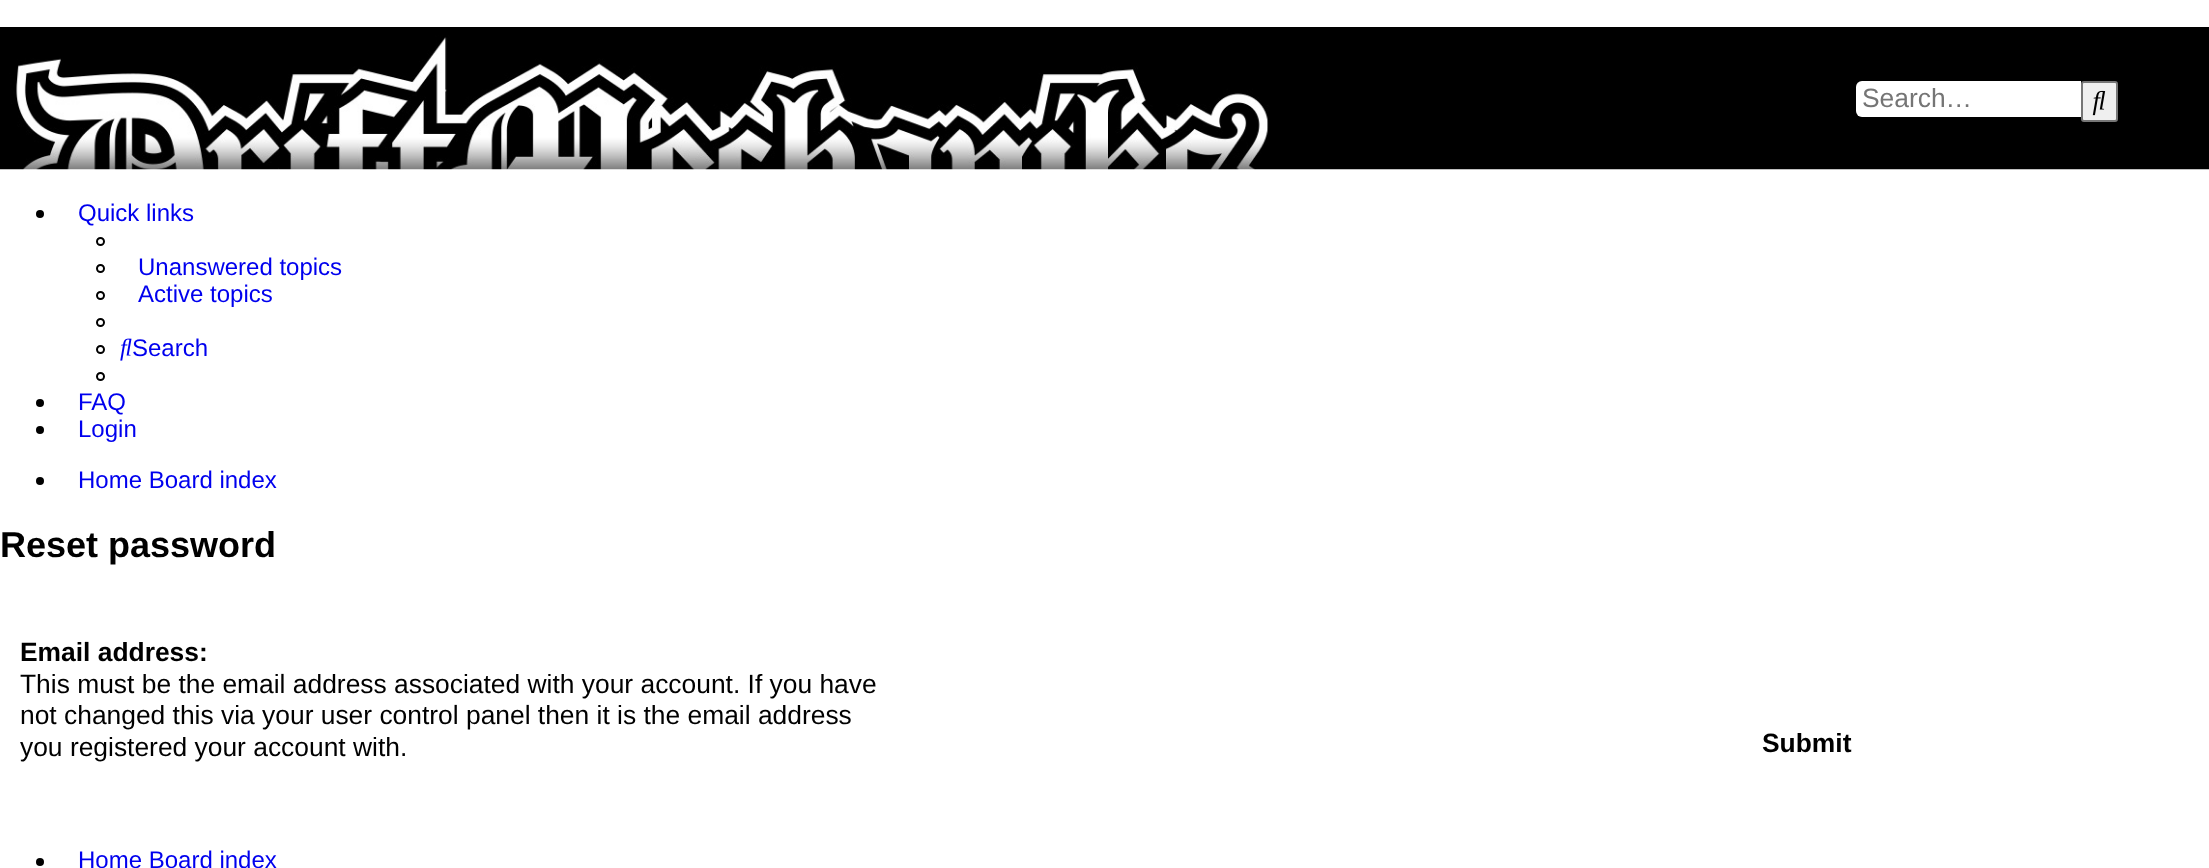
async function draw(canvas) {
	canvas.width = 2209;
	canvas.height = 868;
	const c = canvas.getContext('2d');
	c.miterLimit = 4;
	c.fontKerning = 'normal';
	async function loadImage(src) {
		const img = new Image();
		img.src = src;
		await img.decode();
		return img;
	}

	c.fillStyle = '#fff';
	c.fillRect(0, 0, 2209, 868);
	c.drawImage(await loadImage('img1.png'), 0, 27, 2209, 143);
	c.beginPath();
	c.roundRect(1856, 81, 225, 36, [6, 0, 0, 6]);
	c.fill();
	c.font = '26.4px Liberation Sans';
	c.fillStyle = '#757575';
	c.fillText('Search…', 1862, 107);
	c.fillStyle = '#efefef';
	c.beginPath();
	c.roundRect(2082, 82, 35, 39, 2);
	c.fill();
	c.strokeStyle = '#767676';
	c.lineWidth = 2;
	c.stroke();
	c.drawImage(await loadImage('img2.png'), 2092, 90, 14, 26);
	c.fillStyle = '#000';
	c.beginPath();
	c.arc(40, 214, 4, 0, 2 * Math.PI);
	c.fill();
	c.font = '24px Liberation Sans';
	c.fillStyle = '#00e';
	c.fillText('Quick links', 78, 221);
	c.beginPath();
	c.arc(100.5, 241.5, 3.5, 0, 2 * Math.PI);
	c.strokeStyle = '#000';
	c.stroke();
	c.beginPath();
	c.arc(100.5, 268.5, 3.5, 0, 2 * Math.PI);
	c.stroke();
	c.fillText('Unanswered topics', 138, 275);
	c.beginPath();
	c.arc(100.5, 295.5, 3.5, 0, 2 * Math.PI);
	c.stroke();
	c.fillText('Active topics', 138, 302);
	c.beginPath();
	c.arc(100.5, 322.5, 3.5, 0, 2 * Math.PI);
	c.stroke();
	c.beginPath();
	c.arc(100.5, 349.5, 3.5, 0, 2 * Math.PI);
	c.stroke();
	c.drawImage(await loadImage('img3.png'), 120, 338, 12, 23);
	c.fillText('Search', 132, 356);
	c.beginPath();
	c.arc(100.5, 376.5, 3.5, 0, 2 * Math.PI);
	c.stroke();
	c.fillStyle = '#000';
	c.beginPath();
	c.arc(40, 403, 4, 0, 2 * Math.PI);
	c.fill();
	c.fillStyle = '#00e';
	c.fillText('FAQ', 78, 410);
	c.fillStyle = '#000';
	c.beginPath();
	c.arc(40, 430, 4, 0, 2 * Math.PI);
	c.fill();
	c.fillStyle = '#00e';
	c.fillText('Login', 78, 437);
	c.fillStyle = '#000';
	c.beginPath();
	c.arc(40, 481, 4, 0, 2 * Math.PI);
	c.fill();
	c.fillStyle = '#00e';
	c.fillText('Home Board index', 78, 488);
	c.font = 'bold 36px Liberation Sans';
	c.fillStyle = '#000';
	c.fillText('Reset password', 0, 557);
	c.font = 'bold 26.4px Liberation Sans';
	c.fillText('Email address:', 20, 661);
	c.font = '26.4px Liberation Sans';
	for (const [text, x, y] of [
		['This must be the email address associated with your account. If you have', 20, 693],
		['not changed this via your user control panel then it is the email address', 20, 724],
		['you registered your account with.', 20, 756],
	]) {
		c.fillText(text, x, y);
	}
	c.font = 'bold 26.4px Liberation Sans';
	c.fillText('Submit', 1762, 752);
	c.beginPath();
	c.arc(40, 862, 4, 0, 2 * Math.PI);
	c.fill();
	c.font = '24px Liberation Sans';
	c.fillStyle = '#00e';
	c.fillText('Home Board index', 78, 868);
}

draw(document.querySelector('canvas'));
